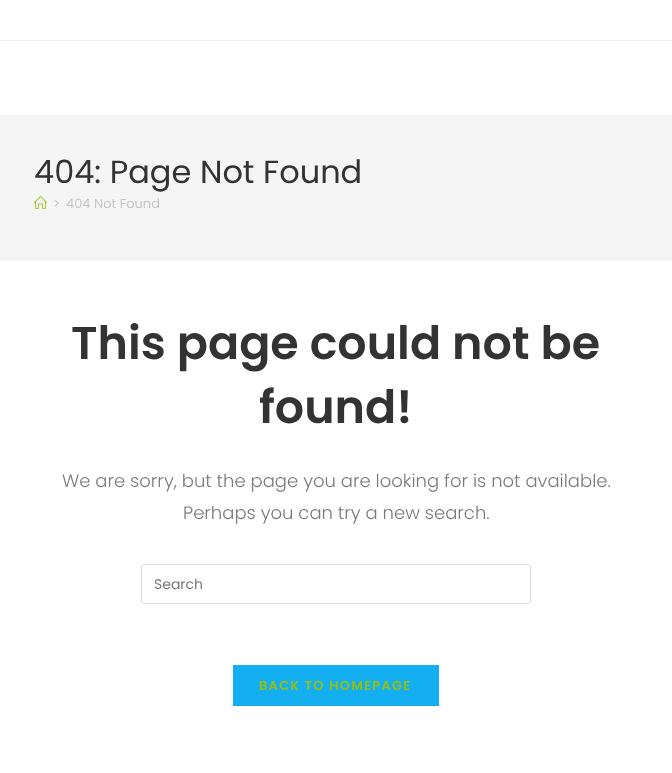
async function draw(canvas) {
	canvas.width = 672;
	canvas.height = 773;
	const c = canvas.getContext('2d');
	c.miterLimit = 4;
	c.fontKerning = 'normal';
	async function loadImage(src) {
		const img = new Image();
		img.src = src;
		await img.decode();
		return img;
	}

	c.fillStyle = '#fff';
	c.fillRect(0, 0, 672, 773);
	for (const [x, y, w, h, color] of [
		[0, 40, 672, 1, '#f1f1f1'],
		[0, 115, 672, 1, '#f1f1f1'],
		[0, 116, 672, 145, '#f5f5f5'],
	]) {
		c.fillStyle = color;
		c.fillRect(x, y, w, h);
	}
	c.font = '32px Poppins';
	c.fillStyle = '#333';
	c.fillText('404: Page Not Found', 34, 183);
	c.drawImage(await loadImage('img1.png'), 34, 195, 13, 14);
	c.font = '13px Poppins';
	c.fillStyle = '#c6c6c6';
	c.fillText('>', 53, 208);
	c.fillText('404 Not Found', 66, 208);
	c.font = '600 46px Poppins';
	c.fillStyle = '#333';
	c.fillText('This page could not be', 71, 359);
	c.fillText('found!', 259, 423);
	c.font = '300 18px Poppins';
	c.fillStyle = '#7a7a7a';
	c.fillText('We are sorry, but the page you are looking for is not available.', 62, 487);
	c.fillText('Perhaps you can try a new search.', 183, 519);
	c.beginPath();
	c.roundRect(141.5, 564.5, 389, 39, 2.5);
	c.strokeStyle = '#ddd';
	c.stroke();
	c.font = '14px Poppins';
	c.fillText('Search', 154, 589);
	c.fillStyle = '#13aff0';
	c.fillRect(233, 665, 206, 41);
	c.letterSpacing = '1.25px';
	c.font = '600 13px Poppins';
	c.fillStyle = '#97bf10';
	c.fillText('BACK TO HOMEPAGE', 259, 690);
}

draw(document.querySelector('canvas'));
